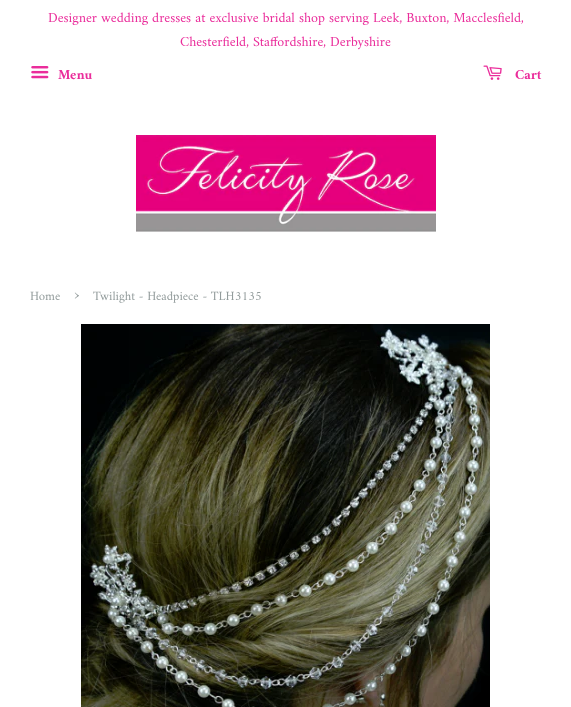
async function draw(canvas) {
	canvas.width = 571;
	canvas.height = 707;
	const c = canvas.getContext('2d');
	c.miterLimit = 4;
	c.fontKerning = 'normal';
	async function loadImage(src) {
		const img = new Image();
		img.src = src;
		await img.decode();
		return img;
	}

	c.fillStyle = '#fff';
	c.fillRect(0, 0, 571, 707);
	c.font = '14px Amiri';
	c.fillStyle = '#ea2d9b';
	c.fillText('Designer wedding dresses at exclusive bridal shop serving Leek, Buxton, Macclesfield,', 48, 22);
	c.fillText('Chesterfield, Staffordshire, Derbyshire', 180, 46);
	c.drawImage(await loadImage('img1.png'), 31, 66, 18, 13);
	c.font = 'bold 14px Amiri';
	c.fillText('Menu', 58, 79);
	c.drawImage(await loadImage('img2.png'), 483, 65, 19, 15);
	c.fillText('Cart', 515, 79);
	c.drawImage(await loadImage('img3.png'), 136, 135, 300, 97);
	c.font = '12.75px Amiri';
	c.fillStyle = '#939c9c';
	c.fillText('Home', 30, 300);
	c.font = '18px Amiri';
	c.fillText('›', 74, 300);
	c.font = '12.75px Amiri';
	c.fillText('Twilight - Headpiece - TLH3135', 93, 300);
	c.drawImage(await loadImage('img4.png'), 81, 324, 409, 383);
}

draw(document.querySelector('canvas'));
